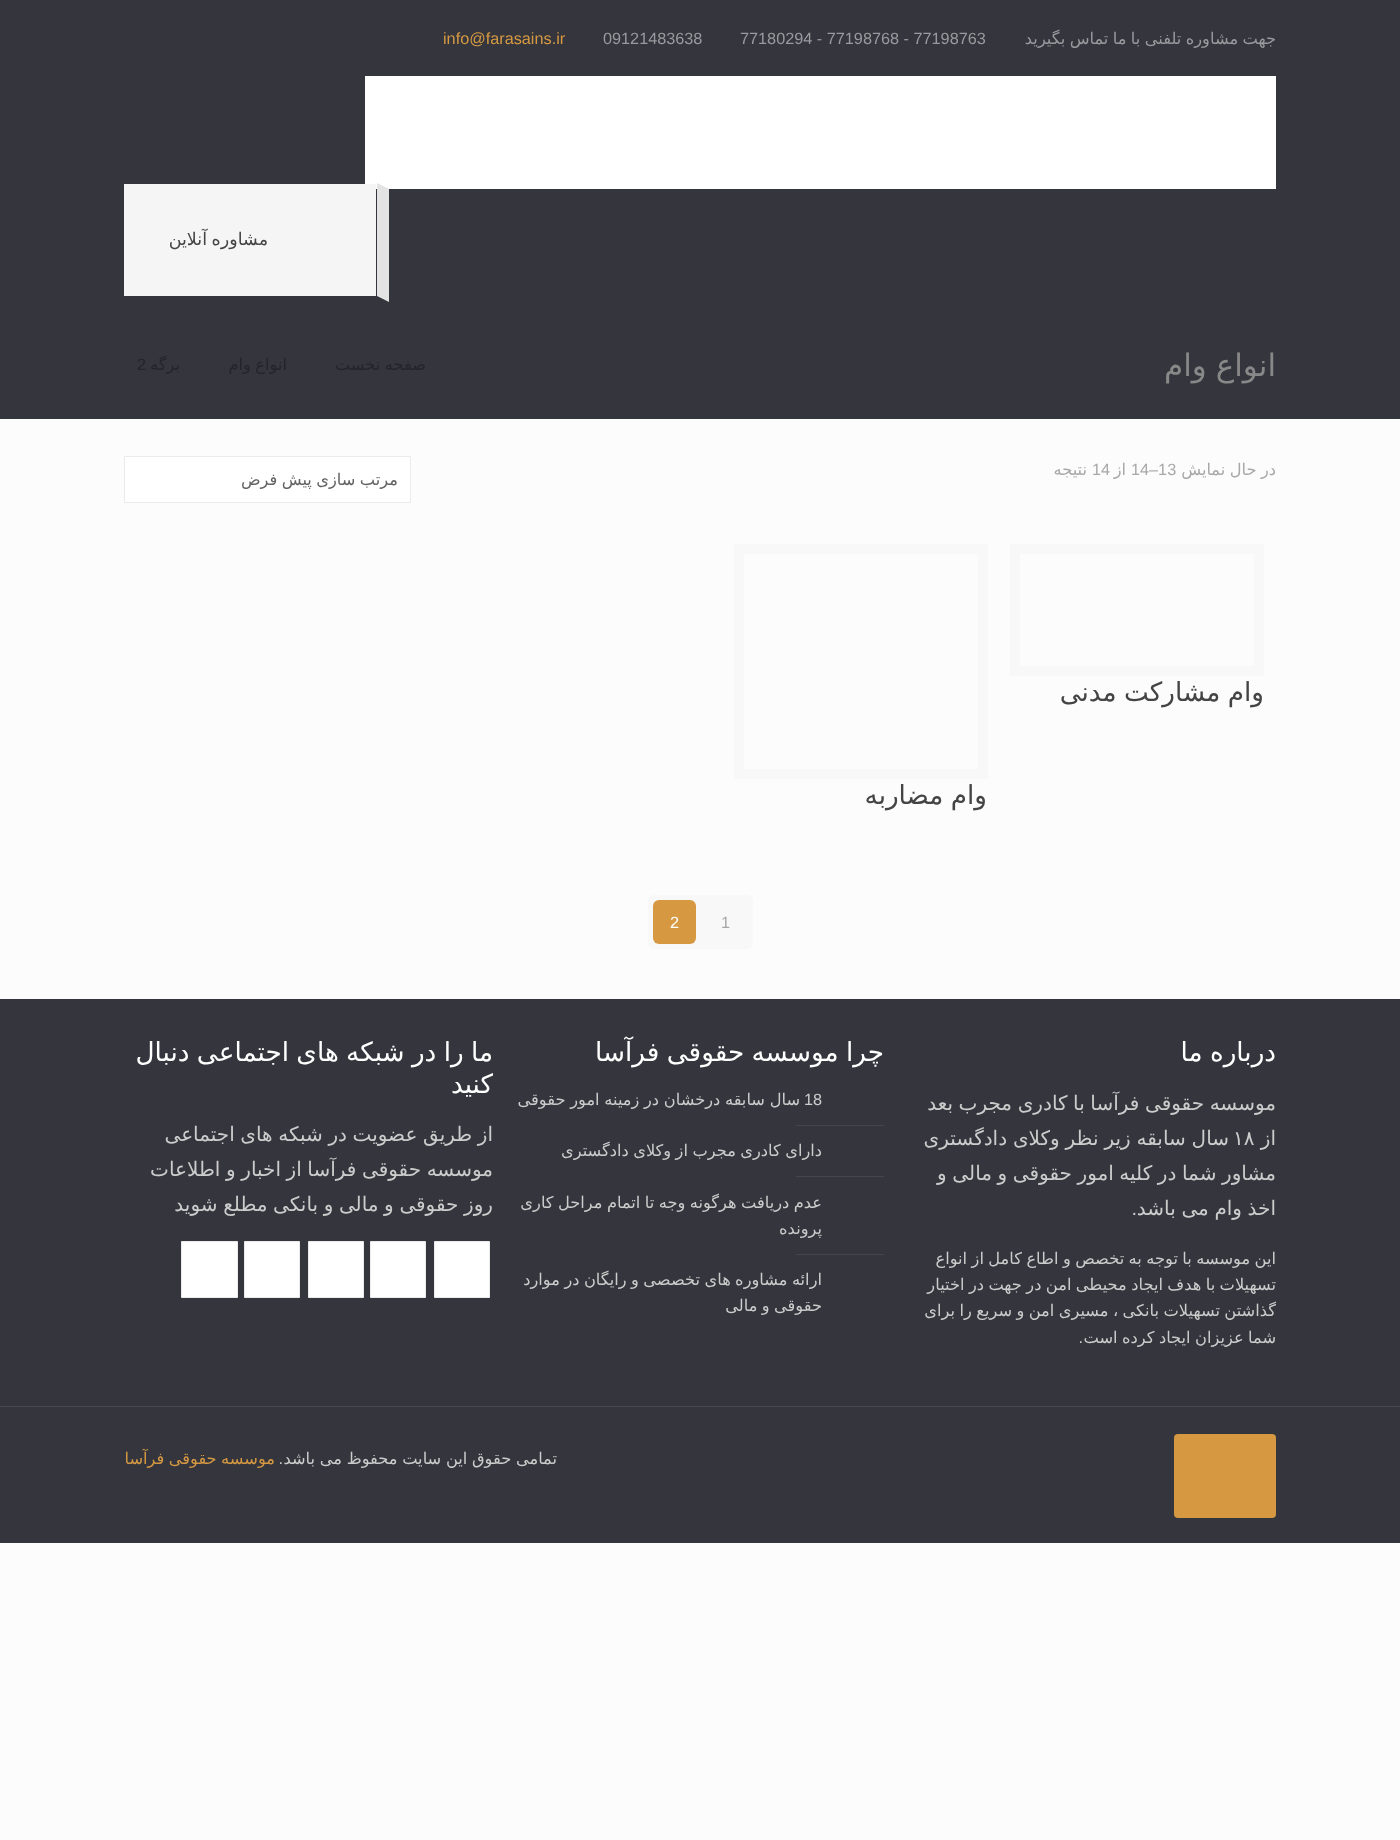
async function draw(canvas) {
	canvas.width = 1400;
	canvas.height = 1840;
	const c = canvas.getContext('2d');
	c.miterLimit = 4;
	c.fontKerning = 'normal';

	c.fillStyle = '#fcfcfc';
	c.fillRect(0, 0, 1400, 1840);
	c.fillStyle = '#34353d';
	c.fillRect(0, 0, 1400, 419);
	c.save();
	c.beginPath();
	c.rect(124, 0, 1152, 76);
	c.clip();
	c.wordSpacing = '-0.75px';
	c.direction = 'rtl';
	c.font = '16.25px DejaVu Sans';
	c.fillStyle = '#9a9a9e';
	c.fillText('جهت مشاوره تلفنی با ما تماس بگیرید', 1276, 44);
	c.restore();
	c.font = '16.25px Liberation Sans';
	c.fillStyle = '#9a9a9e';
	c.fillText('77180294 - 77198768 - 77198763', 740, 44);
	c.fillText('09121483638', 603, 44);
	c.fillStyle = '#d69942';
	c.fillText('info@farasains.ir', 443, 44);
	c.fillStyle = '#fff';
	c.fillRect(365, 76, 911, 113);
	c.fillStyle = '#f5f5f5';
	c.fillRect(124, 184, 252, 112);
	c.fillStyle = '#e3e3e3';
	c.beginPath();
	c.moveTo(377, 183);
	c.lineTo(389, 189);
	c.lineTo(389, 302);
	c.lineTo(377, 296);
	c.closePath();
	c.fill();
	c.wordSpacing = '-1px';
	c.direction = 'rtl';
	c.font = '17.5px DejaVu Sans';
	c.fillStyle = '#444';
	c.fillText('مشاوره آنلاین', 268, 245);
	c.font = '31px DejaVu Sans';
	c.fillStyle = '#888';
	c.fillText('انواع وام', 1276, 376);
	c.wordSpacing = '-0.75px';
	c.font = '16.25px DejaVu Sans';
	c.fillStyle = '#24252b';
	c.fillText('صفحه نخست', 426, 370);
	c.fillText('انواع وام', 287, 370);
	c.wordSpacing = '0px';
	c.fillText('برگه', 180, 370);
	c.direction = 'ltr';
	c.font = '16.25px Liberation Sans';
	c.fillText('2', 137, 370);
	c.wordSpacing = '-0.75px';
	c.direction = 'rtl';
	c.font = '16.25px DejaVu Sans';
	c.fillStyle = '#a8a8a8';
	c.fillText('در حال نمایش', 1276, 475);
	c.wordSpacing = '0px';
	c.direction = 'ltr';
	c.font = '16.25px Liberation Sans';
	c.fillText('14–13', 1131, 475);
	c.direction = 'rtl';
	c.font = '16.25px DejaVu Sans';
	c.fillText('از', 1126, 475);
	c.direction = 'ltr';
	c.font = '16.25px Liberation Sans';
	c.fillText('14', 1092, 475);
	c.direction = 'rtl';
	c.font = '16.25px DejaVu Sans';
	c.fillText('نتیجه', 1087, 475);
	c.fillStyle = '#fff';
	c.beginPath();
	c.rect(124.5, 456.5, 286, 46);
	c.fill();
	c.strokeStyle = '#ebebeb';
	c.stroke();
	c.save();
	c.beginPath();
	c.rect(138, 470, 260, 19);
	c.clip();
	c.wordSpacing = '-0.75px';
	c.fillStyle = '#626262';
	c.fillText('مرتب سازی پیش فرض', 398, 485);
	c.restore();
	c.strokeStyle = '#f8f8f8';
	c.lineWidth = 10;
	c.strokeRect(1015, 549, 244, 122);
	c.wordSpacing = '-1px';
	c.font = '26.25px DejaVu Sans';
	c.fillStyle = '#444';
	c.fillText('وام مشارکت مدنی', 1264, 701);
	c.strokeRect(739, 549, 244, 225);
	c.fillText('وام مضاربه', 987, 804);
	c.fillStyle = '#f8f8f8';
	c.beginPath();
	c.roundRect(648, 895, 105, 54, 6);
	c.fill();
	c.wordSpacing = '0px';
	c.direction = 'ltr';
	c.font = '16.25px Liberation Sans';
	c.fillStyle = '#a8a8a8';
	c.fillText('1', 721, 928);
	c.fillStyle = '#d69942';
	c.beginPath();
	c.roundRect(653, 900, 43, 44, 6);
	c.fill();
	c.fillStyle = '#fff';
	c.fillText('2', 670, 928);
	c.fillStyle = '#34353d';
	c.fillRect(0, 999, 1400, 544);
	c.wordSpacing = '-1px';
	c.direction = 'rtl';
	c.font = '26.25px DejaVu Sans';
	c.fillStyle = '#fff';
	c.fillText('درباره ما', 1276, 1061);
	c.wordSpacing = '-0.75px';
	c.font = '20px DejaVu Sans';
	c.fillStyle = '#ccc';
	c.fillText('موسسه حقوقی فرآسا با کادری مجرب بعد', 1276, 1110);
	c.wordSpacing = '0px';
	c.fillText('از', 1276, 1145);
	c.direction = 'ltr';
	c.fillText('۱۸', 1233, 1145);
	c.wordSpacing = '-0.5px';
	c.direction = 'rtl';
	c.fillText('سال سابقه زیر نظر وکلای دادگستری', 1229, 1145);
	c.wordSpacing = '-0.75px';
	c.fillText('مشاور شما در کلیه امور حقوقی و مالی و', 1276, 1180);
	c.fillText('اخذ وام می باشد', 1276, 1215);
	c.wordSpacing = '0px';
	c.font = '20px Liberation Sans';
	c.fillText('.', 1137, 1215);
	c.wordSpacing = '-0.75px';
	c.font = '16.25px DejaVu Sans';
	for (const [text, x, y] of [
		['این موسسه با توجه به تخصص و اطاع کامل از انواع', 1276, 1264],
		['تسهیلات با هدف ایجاد محیطی امن در جهت در اختیار', 1276, 1290],
		['گذاشتن تسهیلات بانکی ، مسیری امن و سریع را برای', 1276, 1316],
		['شما عزیزان ایجاد کرده است', 1276, 1343],
	]) {
		c.fillText(text, x, y);
	}
	c.wordSpacing = '0px';
	c.font = '16.25px Liberation Sans';
	c.fillText('.', 1083, 1343);
	c.wordSpacing = '-1px';
	c.font = '26.25px DejaVu Sans';
	c.fillStyle = '#fff';
	c.fillText('چرا موسسه حقوقی فرآسا', 884, 1061);
	c.wordSpacing = '0px';
	c.direction = 'ltr';
	c.font = '16.25px Liberation Sans';
	c.fillStyle = '#ccc';
	c.fillText('18', 804, 1105);
	c.wordSpacing = '-0.5px';
	c.direction = 'rtl';
	c.font = '16.25px DejaVu Sans';
	c.fillText('سال سابقه درخشان در زمینه امور حقوقی', 800, 1105);
	c.fillStyle = '#44454d';
	c.fillRect(796, 1125, 88, 1);
	c.wordSpacing = '-0.75px';
	c.fillStyle = '#ccc';
	c.fillText('دارای کادری مجرب از وکلای دادگستری', 822, 1156);
	c.fillStyle = '#44454d';
	c.fillRect(796, 1176, 88, 1);
	c.fillStyle = '#ccc';
	c.fillText('عدم دریافت هرگونه وجه تا اتمام مراحل کاری', 822, 1208);
	c.wordSpacing = '0px';
	c.fillText('پرونده', 822, 1234);
	c.fillStyle = '#44454d';
	c.fillRect(796, 1254, 88, 1);
	c.wordSpacing = '-0.75px';
	c.fillStyle = '#ccc';
	c.fillText('ارائه مشاوره های تخصصی و رایگان در موارد', 822, 1285);
	c.fillText('حقوقی و مالی', 822, 1311);
	c.wordSpacing = '-1px';
	c.font = '26.25px DejaVu Sans';
	c.fillStyle = '#fff';
	c.fillText('ما را در شبکه های اجتماعی دنبال', 493, 1061);
	c.wordSpacing = '0px';
	c.fillText('کنید', 493, 1093);
	c.wordSpacing = '-0.75px';
	c.font = '20px DejaVu Sans';
	c.fillStyle = '#ccc';
	for (const [text, x, y] of [
		['از طریق عضویت در شبکه های اجتماعی', 493, 1141],
		['موسسه حقوقی فرآسا از اخبار و اطلاعات', 493, 1176],
		['روز حقوقی و مالی و بانکی مطلع شوید', 493, 1211],
	]) {
		c.fillText(text, x, y);
	}
	c.fillStyle = '#fff';
	c.beginPath();
	c.rect(434.5, 1241.5, 55, 56);
	c.fill();
	c.strokeStyle = '#ebebeb';
	c.lineWidth = 1;
	c.stroke();
	c.beginPath();
	c.rect(370.5, 1241.5, 55, 56);
	c.fill();
	c.stroke();
	c.beginPath();
	c.rect(308.5, 1241.5, 55, 56);
	c.fill();
	c.stroke();
	c.beginPath();
	c.rect(244.5, 1241.5, 55, 56);
	c.fill();
	c.stroke();
	c.beginPath();
	c.rect(181.5, 1241.5, 56, 56);
	c.fill();
	c.stroke();
	c.fillStyle = '#484950';
	c.fillRect(0, 1406, 1400, 1);
	c.fillStyle = '#d69942';
	c.beginPath();
	c.roundRect(1174, 1434, 102, 84, 4);
	c.fill();
	c.wordSpacing = '-0.5px';
	c.font = '16.25px DejaVu Sans';
	c.fillStyle = '#ccc';
	c.fillText('تمامی حقوق این سایت محفوظ می باشد', 557, 1464);
	c.wordSpacing = '0px';
	c.font = '16.25px Liberation Sans';
	c.fillText('.', 283, 1464);
	c.wordSpacing = '-0.75px';
	c.font = '16.25px DejaVu Sans';
	c.fillStyle = '#d69942';
	c.fillText('موسسه حقوقی فرآسا', 275, 1464);
}

draw(document.querySelector('canvas'));
